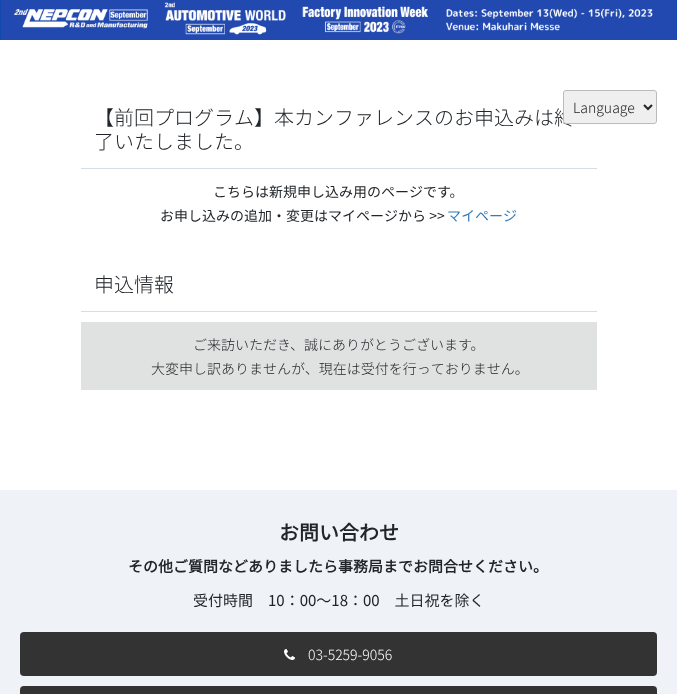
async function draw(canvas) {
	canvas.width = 677;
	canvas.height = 694;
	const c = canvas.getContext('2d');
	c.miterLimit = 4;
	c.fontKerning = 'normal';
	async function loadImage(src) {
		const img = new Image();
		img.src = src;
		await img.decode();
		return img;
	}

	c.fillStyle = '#fff';
	c.fillRect(0, 0, 677, 694);
	c.fillStyle = '#004aad';
	c.fillRect(0, 0, 677, 40);
	c.drawImage(await loadImage('img1.png'), 0, 0, 677, 40);
	c.fillStyle = '#d6dee5';
	c.fillRect(81, 168, 516, 1);
	c.font = '300 20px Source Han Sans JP';
	c.fillStyle = '#212529';
	c.fillText('【前回プログラム】本カンファレンスのお申込みは終', 94, 125);
	c.fillText('了いたしました。', 94, 149);
	c.font = '14px Source Han Sans JP';
	c.fillText('こちらは新規申し込み用のページです。', 213, 197);
	c.fillText('お申し込みの追加・変更はマイページから >>', 160, 221);
	c.fillStyle = '#337ab7';
	c.fillText('マイページ', 447, 221);
	c.fillStyle = '#efefef';
	c.beginPath();
	c.roundRect(563.5, 90.5, 93, 33, 2.5);
	c.fill();
	c.strokeStyle = '#bbb';
	c.stroke();
	c.beginPath();
	c.moveTo(644, 105);
	c.lineTo(648, 109);
	c.lineTo(652, 105);
	c.strokeStyle = '#212529';
	c.lineWidth = 2;
	c.stroke();
	c.font = '300 14px Source Han Sans JP';
	c.fillStyle = '#212529';
	c.fillText('Language', 573, 113);
	c.fillStyle = '#d6dee5';
	c.fillRect(81, 311, 516, 1);
	c.font = '300 20px Source Han Sans JP';
	c.fillStyle = '#212529';
	c.fillText('申込情報', 94, 292);
	c.fillStyle = '#e0e1e1';
	c.fillRect(81, 322, 516, 68);
	c.font = '300 14px Source Han Sans JP';
	c.fillStyle = '#212529';
	c.fillText('ご来訪いただき、誠にありがとうございます。', 193, 350);
	c.fillText('大変申し訳ありませんが、現在は受付を行っておりません。', 151, 374);
	c.fillStyle = '#eff2f7';
	c.fillRect(0, 490, 677, 204);
	c.font = 'bold 20px Source Han Sans JP';
	c.fillStyle = '#212529';
	c.fillText('お問い合わせ', 279, 540);
	c.font = 'bold 15px Source Han Sans JP';
	c.fillText('その他ご質問などありましたら事務局までお問合せください。', 128, 572);
	c.font = '15px Source Han Sans JP';
	c.fillText('受付時間　10：00～18：00　土日祝を除く', 193, 606);
	c.fillStyle = '#333';
	c.beginPath();
	c.roundRect(20, 632, 637, 44, 4);
	c.fill();
	c.drawImage(await loadImage('img2.png'), 284, 649, 11, 11);
	c.font = '300 14px Source Han Sans JP';
	c.fillStyle = '#fff';
	c.fillText('03-5259-9056', 308, 660);
	c.fillStyle = '#333';
	c.beginPath();
	c.roundRect(20, 686, 637, 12, 4);
	c.fill();
}

draw(document.querySelector('canvas'));
